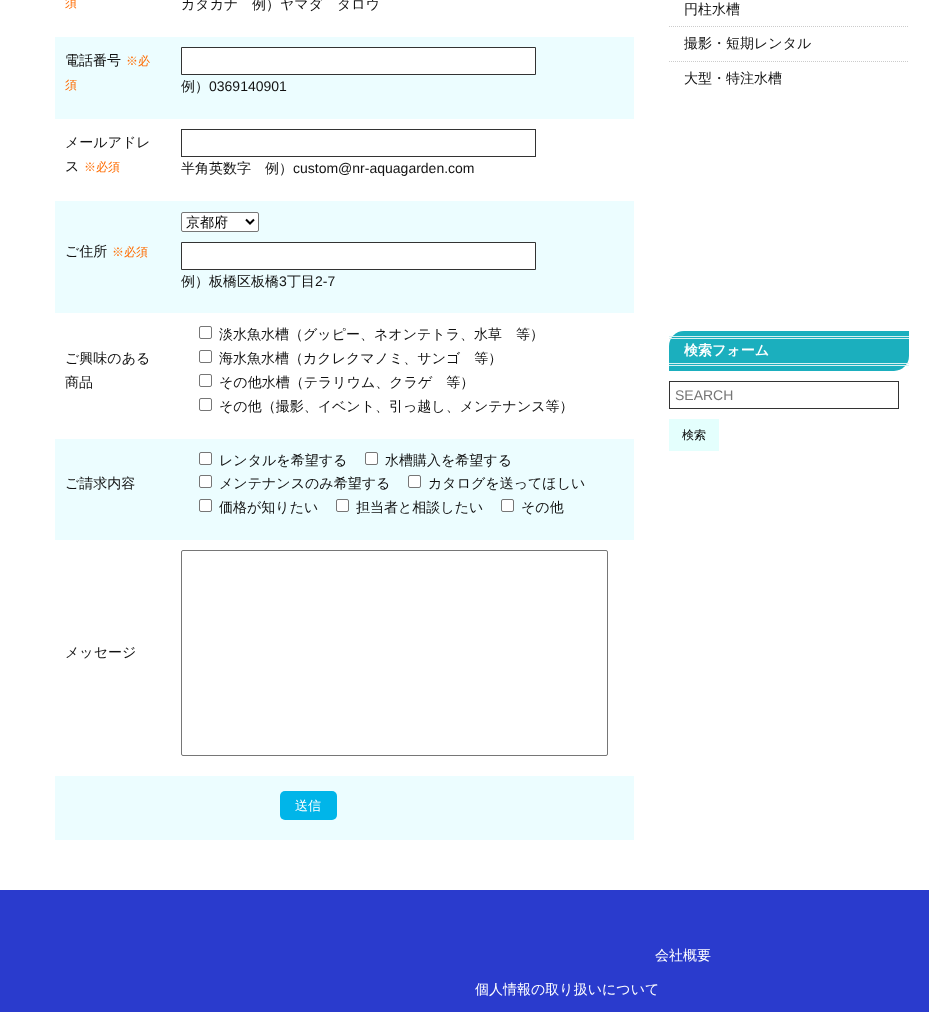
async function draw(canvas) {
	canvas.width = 929;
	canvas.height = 1012;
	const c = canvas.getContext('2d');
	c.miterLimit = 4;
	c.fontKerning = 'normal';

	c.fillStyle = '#fff';
	c.fillRect(0, 0, 929, 1012);
	c.font = '500 12px WenQuanYi Zen Hei';
	c.fillStyle = '#ff6c00';
	c.fillText('須', 65, 7);
	c.font = '500 14px WenQuanYi Zen Hei';
	c.fillStyle = '#111';
	c.fillText('カタカナ', 181, 9);
	c.fillText('例）ヤマダ　タロウ', 252, 9);
	c.fillStyle = '#ecfdff';
	c.fillRect(55, 37, 579, 82);
	c.fillStyle = '#111';
	c.fillText('電話番号', 65, 65);
	c.font = '500 12px WenQuanYi Zen Hei';
	c.fillStyle = '#ff6c00';
	c.fillText('※必', 126, 65);
	c.fillText('須', 65, 89);
	c.fillStyle = '#fff';
	c.beginPath();
	c.rect(181.5, 47.5, 354, 27);
	c.fill();
	c.strokeStyle = '#333';
	c.stroke();
	c.font = '500 14px WenQuanYi Zen Hei';
	c.fillStyle = '#111';
	c.fillText('例）', 181, 91);
	c.font = '14px Liberation Sans';
	c.fillText('0369140901', 209, 91);
	c.font = '500 14px WenQuanYi Zen Hei';
	c.fillText('メールアドレ', 65, 147);
	c.fillText('ス', 65, 171);
	c.font = '500 12px WenQuanYi Zen Hei';
	c.fillStyle = '#ff6c00';
	c.fillText('※必須', 84, 171);
	c.strokeRect(181.5, 129.5, 354, 27);
	c.font = '500 14px WenQuanYi Zen Hei';
	c.fillStyle = '#111';
	c.fillText('半角英数字', 181, 173);
	c.fillText('例）', 265, 173);
	c.font = '14px Liberation Sans';
	c.fillText('custom@nr-aquagarden.com', 293, 173);
	c.fillStyle = '#ecfdff';
	c.fillRect(55, 201, 579, 112);
	c.font = '500 14px WenQuanYi Zen Hei';
	c.fillStyle = '#111';
	c.fillText('ご住所', 65, 256);
	c.font = '500 12px WenQuanYi Zen Hei';
	c.fillStyle = '#ff6c00';
	c.fillText('※必須', 112, 256);
	c.fillStyle = '#fff';
	c.beginPath();
	c.roundRect(181.5, 212.5, 77, 19, 1.5);
	c.fill();
	c.strokeStyle = '#767676';
	c.stroke();
	c.beginPath();
	c.moveTo(246, 219.5);
	c.lineTo(250, 223.5);
	c.lineTo(254, 219.5);
	c.strokeStyle = '#000';
	c.lineWidth = 2;
	c.stroke();
	c.font = '500 14px WenQuanYi Zen Hei';
	c.fillStyle = '#000';
	c.fillText('京都府', 186, 227);
	c.fillStyle = '#fff';
	c.beginPath();
	c.rect(181.5, 242.5, 354, 27);
	c.fill();
	c.strokeStyle = '#333';
	c.lineWidth = 1;
	c.stroke();
	c.fillStyle = '#111';
	c.fillText('例）板橋区板橋', 181, 286);
	c.font = '14px Liberation Sans';
	c.fillText('3', 279, 286);
	c.font = '500 14px WenQuanYi Zen Hei';
	c.fillText('丁目', 287, 286);
	c.font = '14px Liberation Sans';
	c.fillText('2-7', 315, 286);
	c.font = '500 14px WenQuanYi Zen Hei';
	c.fillText('ご興味のある', 65, 363);
	c.fillText('商品', 65, 387);
	c.beginPath();
	c.roundRect(199.5, 326.5, 12, 12, 1.5);
	c.strokeStyle = '#767676';
	c.stroke();
	c.fillText('淡水魚水槽（グッピー、ネオンテトラ、水草　等）', 219, 339);
	c.beginPath();
	c.roundRect(199.5, 350.5, 12, 12, 1.5);
	c.stroke();
	c.fillText('海水魚水槽（カクレクマノミ、サンゴ　等）', 219, 363);
	c.beginPath();
	c.roundRect(199.5, 374.5, 12, 12, 1.5);
	c.stroke();
	c.fillText('その他水槽（テラリウム、クラゲ　等）', 219, 387);
	c.beginPath();
	c.roundRect(199.5, 398.5, 12, 12, 1.5);
	c.stroke();
	c.fillText('その他（撮影、イベント、引っ越し、メンテナンス等）', 219, 411);
	c.fillStyle = '#ecfdff';
	c.fillRect(55, 439, 579, 101);
	c.fillStyle = '#111';
	c.fillText('ご請求内容', 65, 488);
	c.fillStyle = '#fff';
	c.beginPath();
	c.roundRect(199.5, 452.5, 12, 12, 1.5);
	c.fill();
	c.stroke();
	c.fillStyle = '#111';
	c.fillText('レンタルを希望する', 219, 465);
	c.fillStyle = '#fff';
	c.beginPath();
	c.roundRect(365.5, 452.5, 12, 12, 1.5);
	c.fill();
	c.stroke();
	c.fillStyle = '#111';
	c.fillText('水槽購入を希望する', 385, 465);
	c.fillStyle = '#fff';
	c.beginPath();
	c.roundRect(199.5, 475.5, 12, 12, 1.5);
	c.fill();
	c.stroke();
	c.fillStyle = '#111';
	c.fillText('メンテナンスのみ希望する', 219, 488);
	c.fillStyle = '#fff';
	c.beginPath();
	c.roundRect(408.5, 475.5, 12, 12, 1.5);
	c.fill();
	c.stroke();
	c.fillStyle = '#111';
	c.fillText('カタログを送ってほしい', 428, 488);
	c.fillStyle = '#fff';
	c.beginPath();
	c.roundRect(199.5, 499.5, 12, 12, 1.5);
	c.fill();
	c.stroke();
	c.fillStyle = '#111';
	c.fillText('価格が知りたい', 219, 512);
	c.fillStyle = '#fff';
	c.beginPath();
	c.roundRect(336.5, 499.5, 12, 12, 1.5);
	c.fill();
	c.stroke();
	c.fillStyle = '#111';
	c.fillText('担当者と相談したい', 356, 512);
	c.fillStyle = '#fff';
	c.beginPath();
	c.roundRect(501.5, 499.5, 12, 12, 1.5);
	c.fill();
	c.stroke();
	c.fillStyle = '#111';
	c.fillText('その他', 521, 512);
	c.fillText('メッセージ', 65, 657);
	c.beginPath();
	c.roundRect(181.5, 550.5, 426, 205, 1.5);
	c.stroke();
	c.fillStyle = '#ecfdff';
	c.fillRect(55, 776, 579, 64);
	c.fillStyle = '#00b5e9';
	c.beginPath();
	c.roundRect(280, 791, 57, 29, 5);
	c.fill();
	c.font = '500 13px WenQuanYi Zen Hei';
	c.fillStyle = '#fff';
	c.fillText('送信', 295, 810);
	c.beginPath();
	c.moveTo(669, 26.5);
	c.lineTo(909, 26.5);
	c.strokeStyle = '#ccc';
	c.setLineDash([1, 1]);
	c.stroke();
	c.font = '500 14px WenQuanYi Zen Hei';
	c.fillStyle = '#111';
	c.fillText('円柱水槽', 684, 14);
	c.beginPath();
	c.moveTo(669, 61.5);
	c.lineTo(909, 61.5);
	c.stroke();
	c.fillText('撮影・短期レンタル', 684, 48);
	c.fillText('大型・特注水槽', 684, 83);
	c.fillStyle = '#1bafbe';
	c.beginPath();
	c.roundRect(669, 331, 240, 40, [15, 0, 15, 0]);
	c.fill();
	c.fillStyle = '#d9f1f1';
	c.fillRect(669, 336, 240, 1);
	c.fillRect(669, 338, 240, 1);
	c.font = 'bold 14px WenQuanYi Zen Hei';
	c.fillStyle = '#fff';
	c.fillText('検索フォーム', 684, 355);
	c.fillStyle = '#d9f1f1';
	c.fillRect(669, 363, 240, 1);
	c.fillRect(669, 365, 240, 1);
	c.strokeStyle = '#333';
	c.setLineDash([]);
	c.strokeRect(669.5, 381.5, 229, 27);
	c.font = '14px Liberation Sans';
	c.fillStyle = '#757575';
	c.fillText('SEARCH', 675, 400);
	c.fillStyle = '#e4fffd';
	c.fillRect(669, 419, 50, 32);
	c.font = '500 12px WenQuanYi Zen Hei';
	c.fillStyle = '#000';
	c.fillText('検索', 682, 439);
	c.fillStyle = '#2a3bcd';
	c.fillRect(0, 890, 929, 122);
	c.font = '500 14px WenQuanYi Zen Hei';
	c.fillStyle = '#fff';
	c.fillText('会社概要', 655, 960);
	c.fillText('個人情報の取り扱いについて', 475, 994);
}

draw(document.querySelector('canvas'));
